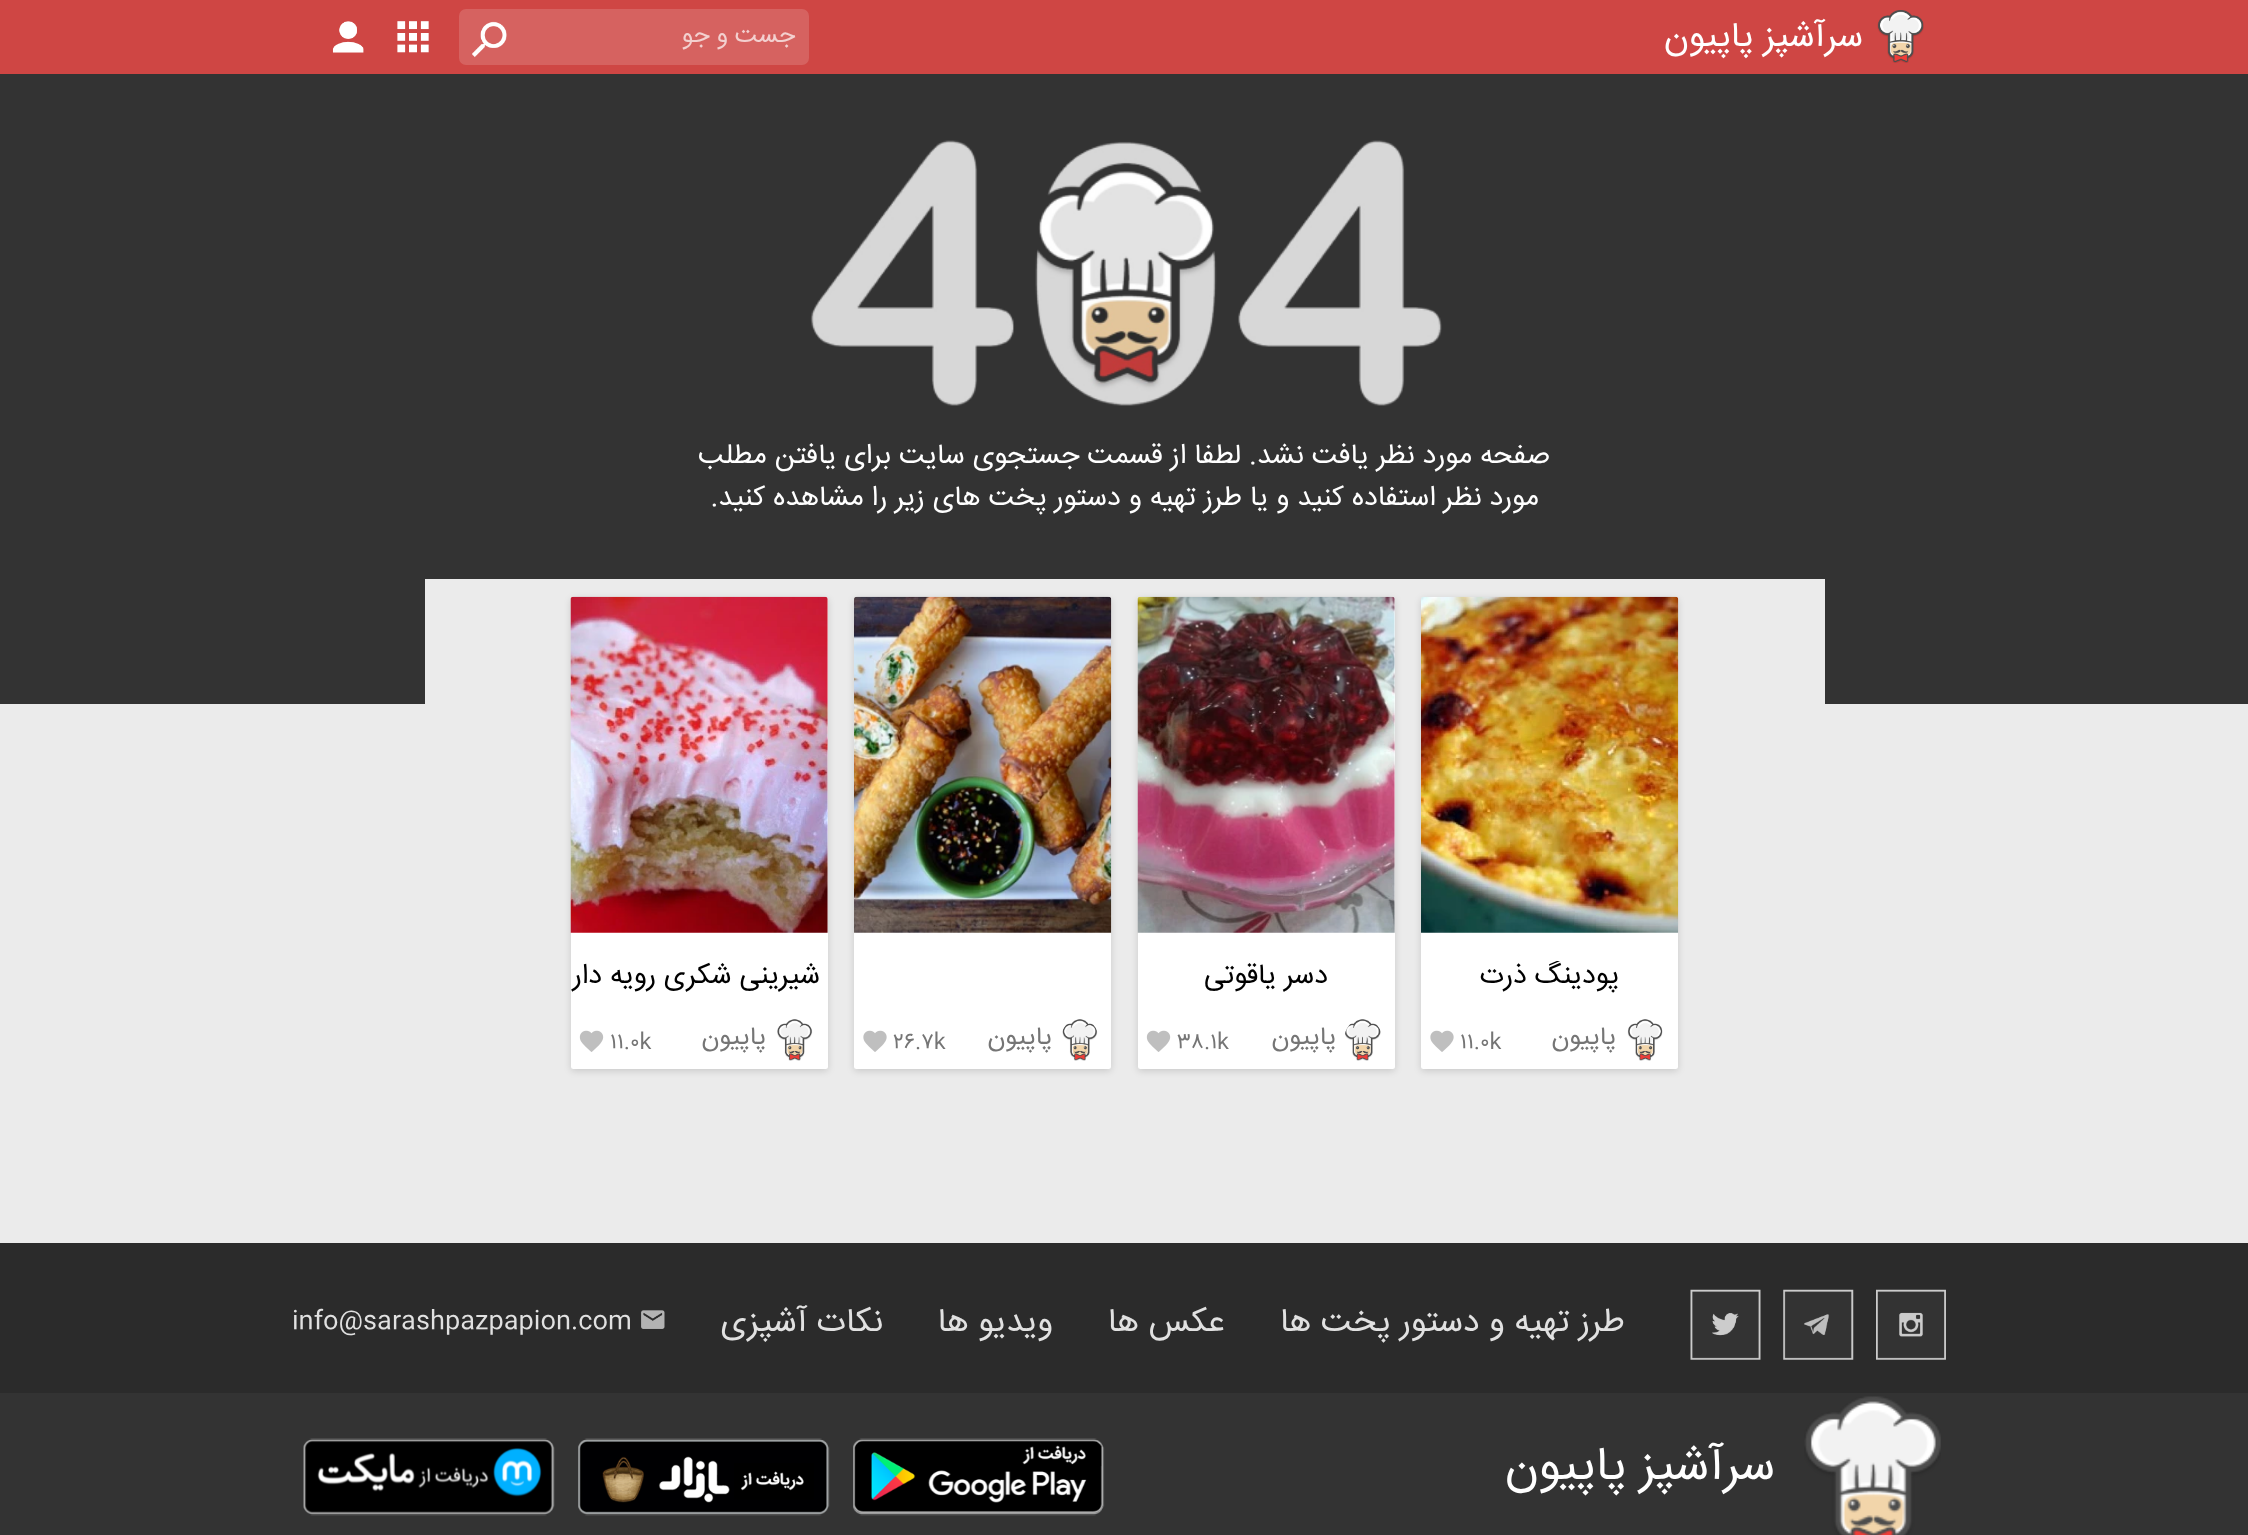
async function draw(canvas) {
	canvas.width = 2248;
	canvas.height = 1535;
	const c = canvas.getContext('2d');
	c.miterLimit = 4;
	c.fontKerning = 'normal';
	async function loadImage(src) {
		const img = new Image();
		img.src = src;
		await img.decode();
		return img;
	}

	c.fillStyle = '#ebebeb';
	c.fillRect(0, 0, 2248, 1535);
	c.fillStyle = '#cf4644';
	c.fillRect(0, 0, 2248, 74);
	c.drawImage(await loadImage('img1.png'), 1877, 10, 47, 53);
	c.direction = 'rtl';
	c.font = '35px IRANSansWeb';
	c.fillStyle = '#fff';
	c.fillText('سرآشپز پاپیون', 1863, 46);
	c.fillStyle = '#d66260';
	c.beginPath();
	c.roundRect(459, 9, 350, 56, 7);
	c.fill();
	c.drawImage(await loadImage('img2.png'), 472, 21, 35, 37);
	c.font = '24.5px IRANSansWeb';
	c.fillStyle = '#f3d0cf';
	c.fillText('جست و جو', 795, 42);
	c.drawImage(await loadImage('img3.png'), 397, 21, 32, 32);
	c.drawImage(await loadImage('img4.png'), 332, 21, 32, 32);
	c.fillStyle = '#333';
	c.fillRect(0, 74, 2248, 630);
	c.drawImage(await loadImage('img5.png'), 810, 140, 632, 266);
	c.font = '28px IRANSansWeb';
	c.fillStyle = '#fff';
	for (const [text, x, y] of [
		['صفحه مورد نظر یافت نشد.', 1550, 463],
		['لطفا از قسمت جستجوی سایت برای یافتن مطلب', 1241, 463],
		['مورد نظر استفاده کنید و یا طرز تهیه و دستور پخت های زیر را مشاهده کنید.', 1539, 505],
	]) {
		c.fillText(text, x, y);
	}
	c.fillStyle = '#ebebeb';
	c.fillRect(425, 579, 1400, 125);
	c.fillStyle = '#00000024';
	c.filter = 'blur(3.5px)';
	c.beginPath();
	c.roundRect(1421, 599, 257, 472, 2.5);
	c.fill();
	c.filter = 'none';
	c.fillStyle = '#fff';
	c.beginPath();
	c.roundRect(1421, 597, 257, 472, 2.5);
	c.fill();
	c.drawImage(await loadImage('img6.png'), 1421, 596, 258, 337);
	c.save();
	c.beginPath();
	c.rect(1421, 961, 257, 33);
	c.clip();
	c.fillStyle = '#000';
	c.fillText('پودینگ ذرت', 1619, 983);
	c.restore();
	c.drawImage(await loadImage('img7.png'), 1627, 1019, 36, 42);
	c.font = '25.25px IRANSansWeb';
	c.fillStyle = '#757575';
	c.fillText('پاپیون', 1616, 1044);
	c.direction = 'ltr';
	c.font = '22px IRANSansWeb';
	c.fillText('۱۱.۰k', 1460, 1048);
	c.drawImage(await loadImage('img8.png'), 1430, 1030, 24, 22);
	c.fillStyle = '#00000024';
	c.filter = 'blur(3.5px)';
	c.beginPath();
	c.roundRect(1138, 599, 257, 472, 2.5);
	c.fill();
	c.filter = 'none';
	c.fillStyle = '#fff';
	c.beginPath();
	c.roundRect(1138, 597, 257, 472, 2.5);
	c.fill();
	c.drawImage(await loadImage('img9.png'), 1137, 596, 258, 337);
	c.direction = 'rtl';
	c.font = '28px IRANSansWeb';
	c.fillStyle = '#000';
	c.fillText('دسر یاقوتی', 1328, 983);
	c.drawImage(await loadImage('img10.png'), 1345, 1019, 36, 42);
	c.font = '25.25px IRANSansWeb';
	c.fillStyle = '#757575';
	c.fillText('پاپیون', 1336, 1044);
	c.direction = 'ltr';
	c.font = '22px IRANSansWeb';
	c.fillText('۳۸.۱k', 1177, 1048);
	c.drawImage(await loadImage('img11.png'), 1146, 1030, 25, 22);
	c.fillStyle = '#00000024';
	c.filter = 'blur(3.5px)';
	c.beginPath();
	c.roundRect(854, 599, 257, 472, 2.5);
	c.fill();
	c.filter = 'none';
	c.fillStyle = '#fff';
	c.beginPath();
	c.roundRect(854, 597, 257, 472, 2.5);
	c.fill();
	c.drawImage(await loadImage('img12.png'), 854, 596, 258, 337);
	c.drawImage(await loadImage('img13.png'), 1062, 1019, 36, 42);
	c.direction = 'rtl';
	c.font = '25.25px IRANSansWeb';
	c.fillStyle = '#757575';
	c.fillText('پاپیون', 1052, 1044);
	c.direction = 'ltr';
	c.font = '22px IRANSansWeb';
	c.fillText('۲۶.۷k', 893, 1048);
	c.drawImage(await loadImage('img8.png'), 863, 1030, 24, 22);
	c.fillStyle = '#00000024';
	c.filter = 'blur(3.5px)';
	c.beginPath();
	c.roundRect(571, 599, 257, 472, 2.5);
	c.fill();
	c.filter = 'none';
	c.fillStyle = '#fff';
	c.beginPath();
	c.roundRect(571, 597, 257, 472, 2.5);
	c.fill();
	c.drawImage(await loadImage('img14.png'), 570, 596, 258, 337);
	c.direction = 'rtl';
	c.font = '28px IRANSansWeb';
	c.fillStyle = '#000';
	c.fillText('شیرینی شکری رویه دار', 820, 983);
	c.drawImage(await loadImage('img15.png'), 777, 1019, 36, 42);
	c.font = '25.25px IRANSansWeb';
	c.fillStyle = '#757575';
	c.fillText('پاپیون', 766, 1044);
	c.direction = 'ltr';
	c.font = '22px IRANSansWeb';
	c.fillText('۱۱.۰k', 610, 1048);
	c.drawImage(await loadImage('img11.png'), 579, 1030, 25, 22);
	c.fillStyle = '#2b2b2b';
	c.fillRect(0, 1243, 2248, 150);
	c.drawImage(await loadImage('img16.png'), 1876, 1289, 70, 71);
	c.drawImage(await loadImage('img17.png'), 1783, 1289, 71, 71);
	c.drawImage(await loadImage('img18.png'), 1690, 1289, 71, 71);
	c.direction = 'rtl';
	c.font = '33.6px IRANSansWeb';
	c.fillStyle = '#e1e1e1';
	for (const [text, x, y] of [
		['طرز تهیه و دستور پخت ها', 1625, 1331],
		['عکس ها', 1225, 1331],
		['ویدیو ها', 1053, 1331],
		['نکات آشپزی', 883, 1331],
	]) {
		c.fillText(text, x, y);
	}
	c.drawImage(await loadImage('img19.png'), 641, 1310, 24, 19);
	c.direction = 'ltr';
	c.font = '25.25px IRANSansWeb';
	c.fillText('info@sarashpazpapion.com', 292, 1328);
	c.fillStyle = '#333';
	c.fillRect(0, 1393, 2248, 142);
	c.drawImage(await loadImage('img20.png'), 1804, 1396, 137, 139);
	c.direction = 'rtl';
	c.font = '47.5px IRANSansWeb';
	c.fillStyle = '#fff';
	c.fillText('سرآشپز پاپیون', 1775, 1479);
	c.drawImage(await loadImage('img21.png'), 853, 1438, 252, 78);
	c.drawImage(await loadImage('img22.png'), 578, 1438, 252, 78);
	c.drawImage(await loadImage('img23.png'), 303, 1438, 252, 78);
}

draw(document.querySelector('canvas'));
